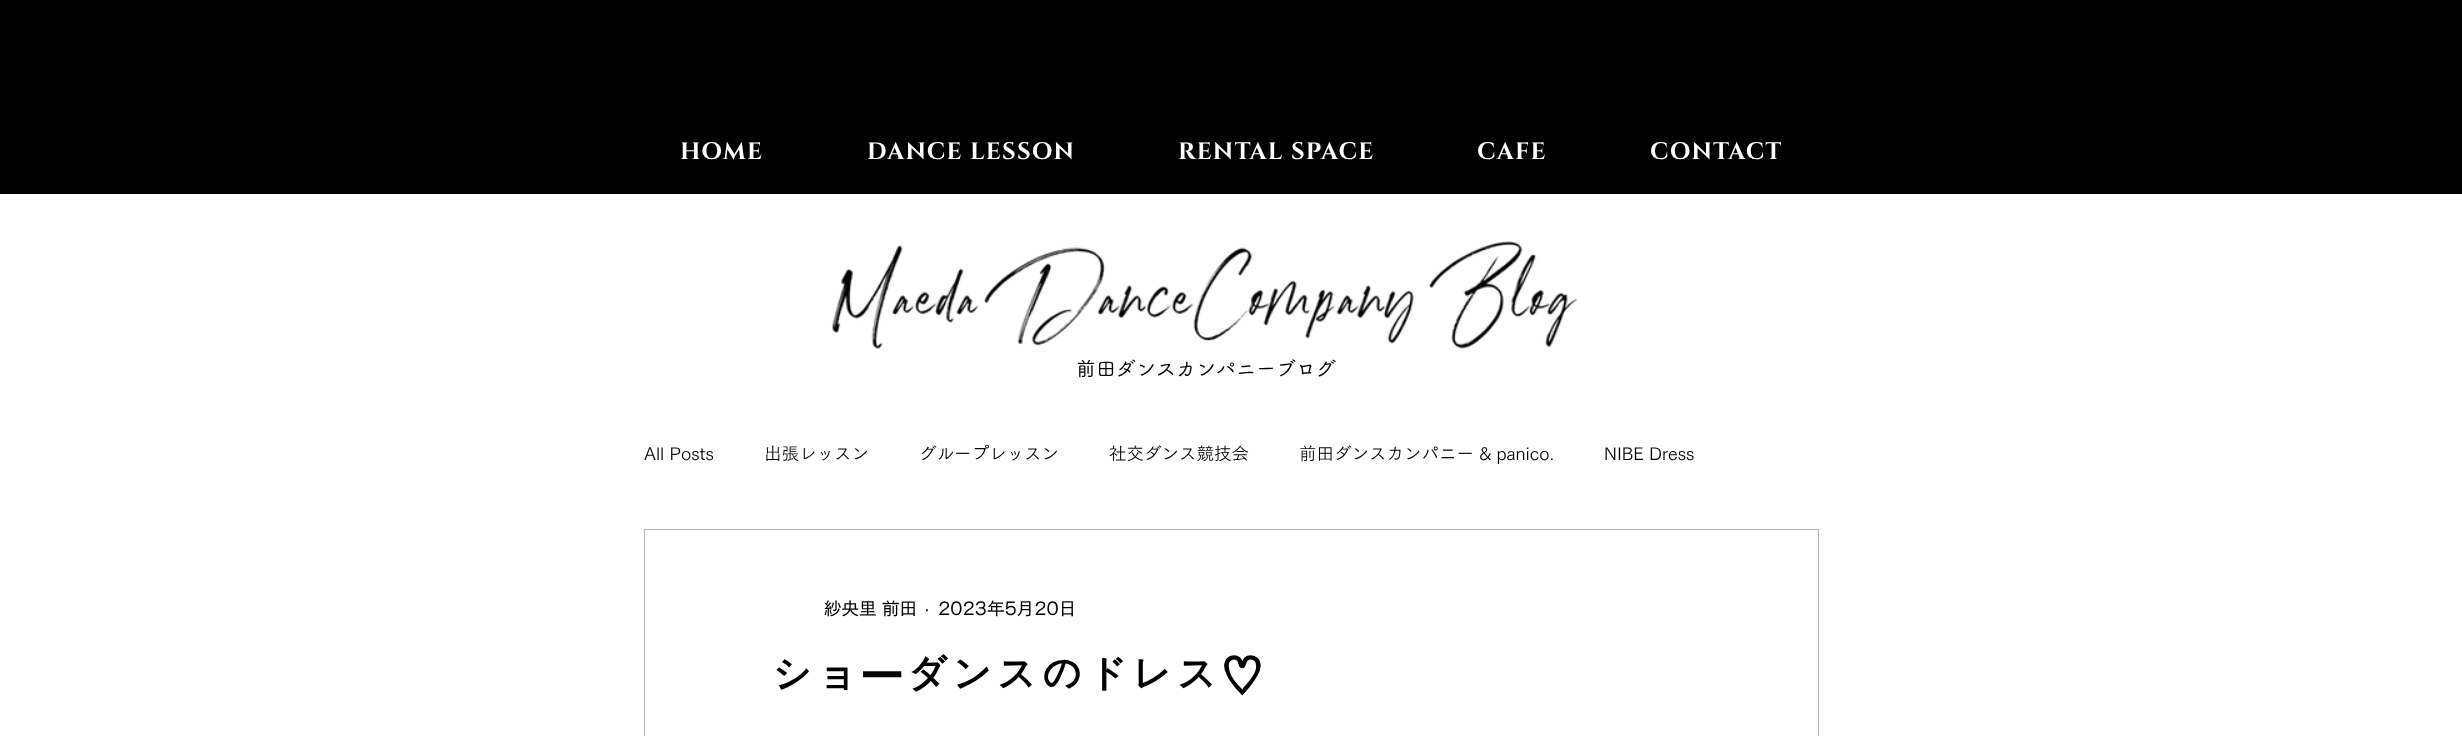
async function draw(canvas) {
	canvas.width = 2462;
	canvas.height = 736;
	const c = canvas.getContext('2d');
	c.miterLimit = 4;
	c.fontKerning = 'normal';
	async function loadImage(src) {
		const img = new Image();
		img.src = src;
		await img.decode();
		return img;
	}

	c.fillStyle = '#fff';
	c.fillRect(0, 0, 2462, 736);
	c.fillStyle = '#000';
	c.fillRect(0, 0, 2462, 194);
	c.letterSpacing = '1.25px';
	c.font = 'bold 23.75px Cinzel';
	c.fillStyle = '#fff';
	for (const [text, x, y] of [
		['HOME', 680, 159],
		['DANCE LESSON', 867, 159],
		['RENTAL SPACE', 1178, 159],
		['CAFE', 1477, 159],
		['CONTACT', 1650, 159],
	]) {
		c.fillText(text, x, y);
	}
	c.drawImage(await loadImage('img1.png'), 831, 241, 747, 108);
	c.letterSpacing = '0px';
	c.font = '500 20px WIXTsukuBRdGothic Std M';
	c.fillStyle = '#000';
	c.fillText('前田ダンスカンパニーブログ', 1076, 376);
	c.font = '17.5px "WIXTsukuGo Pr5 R"';
	for (const [text, x, y] of [
		['All Posts', 644, 460],
		['出張レッスン', 764, 460],
		['グループレッスン', 919, 460],
		['社交ダンス競技会', 1109, 460],
		['前田ダンスカンパニー & panico.', 1299, 460],
		['NIBE Dress', 1604, 460],
	]) {
		c.fillText(text, x, y);
	}
	c.strokeStyle = '#b3b3b3';
	c.strokeRect(644.5, 529.5, 1174, 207);
	c.font = '500 17.5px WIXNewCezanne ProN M';
	c.fillText('紗央里 前田', 824, 615);
	c.font = '17.5px Liberation Sans';
	c.fillText('·', 924, 615);
	c.font = '500 17.5px WIXNewCezanne ProN M';
	c.fillText('2023年5月20日', 938, 615);
	c.font = 'bold 45px Dotum';
	c.fillText('ショ', 769, 692);
	c.font = 'bold 45px WenQuanYi Zen Hei';
	c.fillText('ー', 859, 692);
	c.font = 'bold 45px Dotum';
	c.fillText('ダンスのドレス♡', 904, 692);
}

draw(document.querySelector('canvas'));
